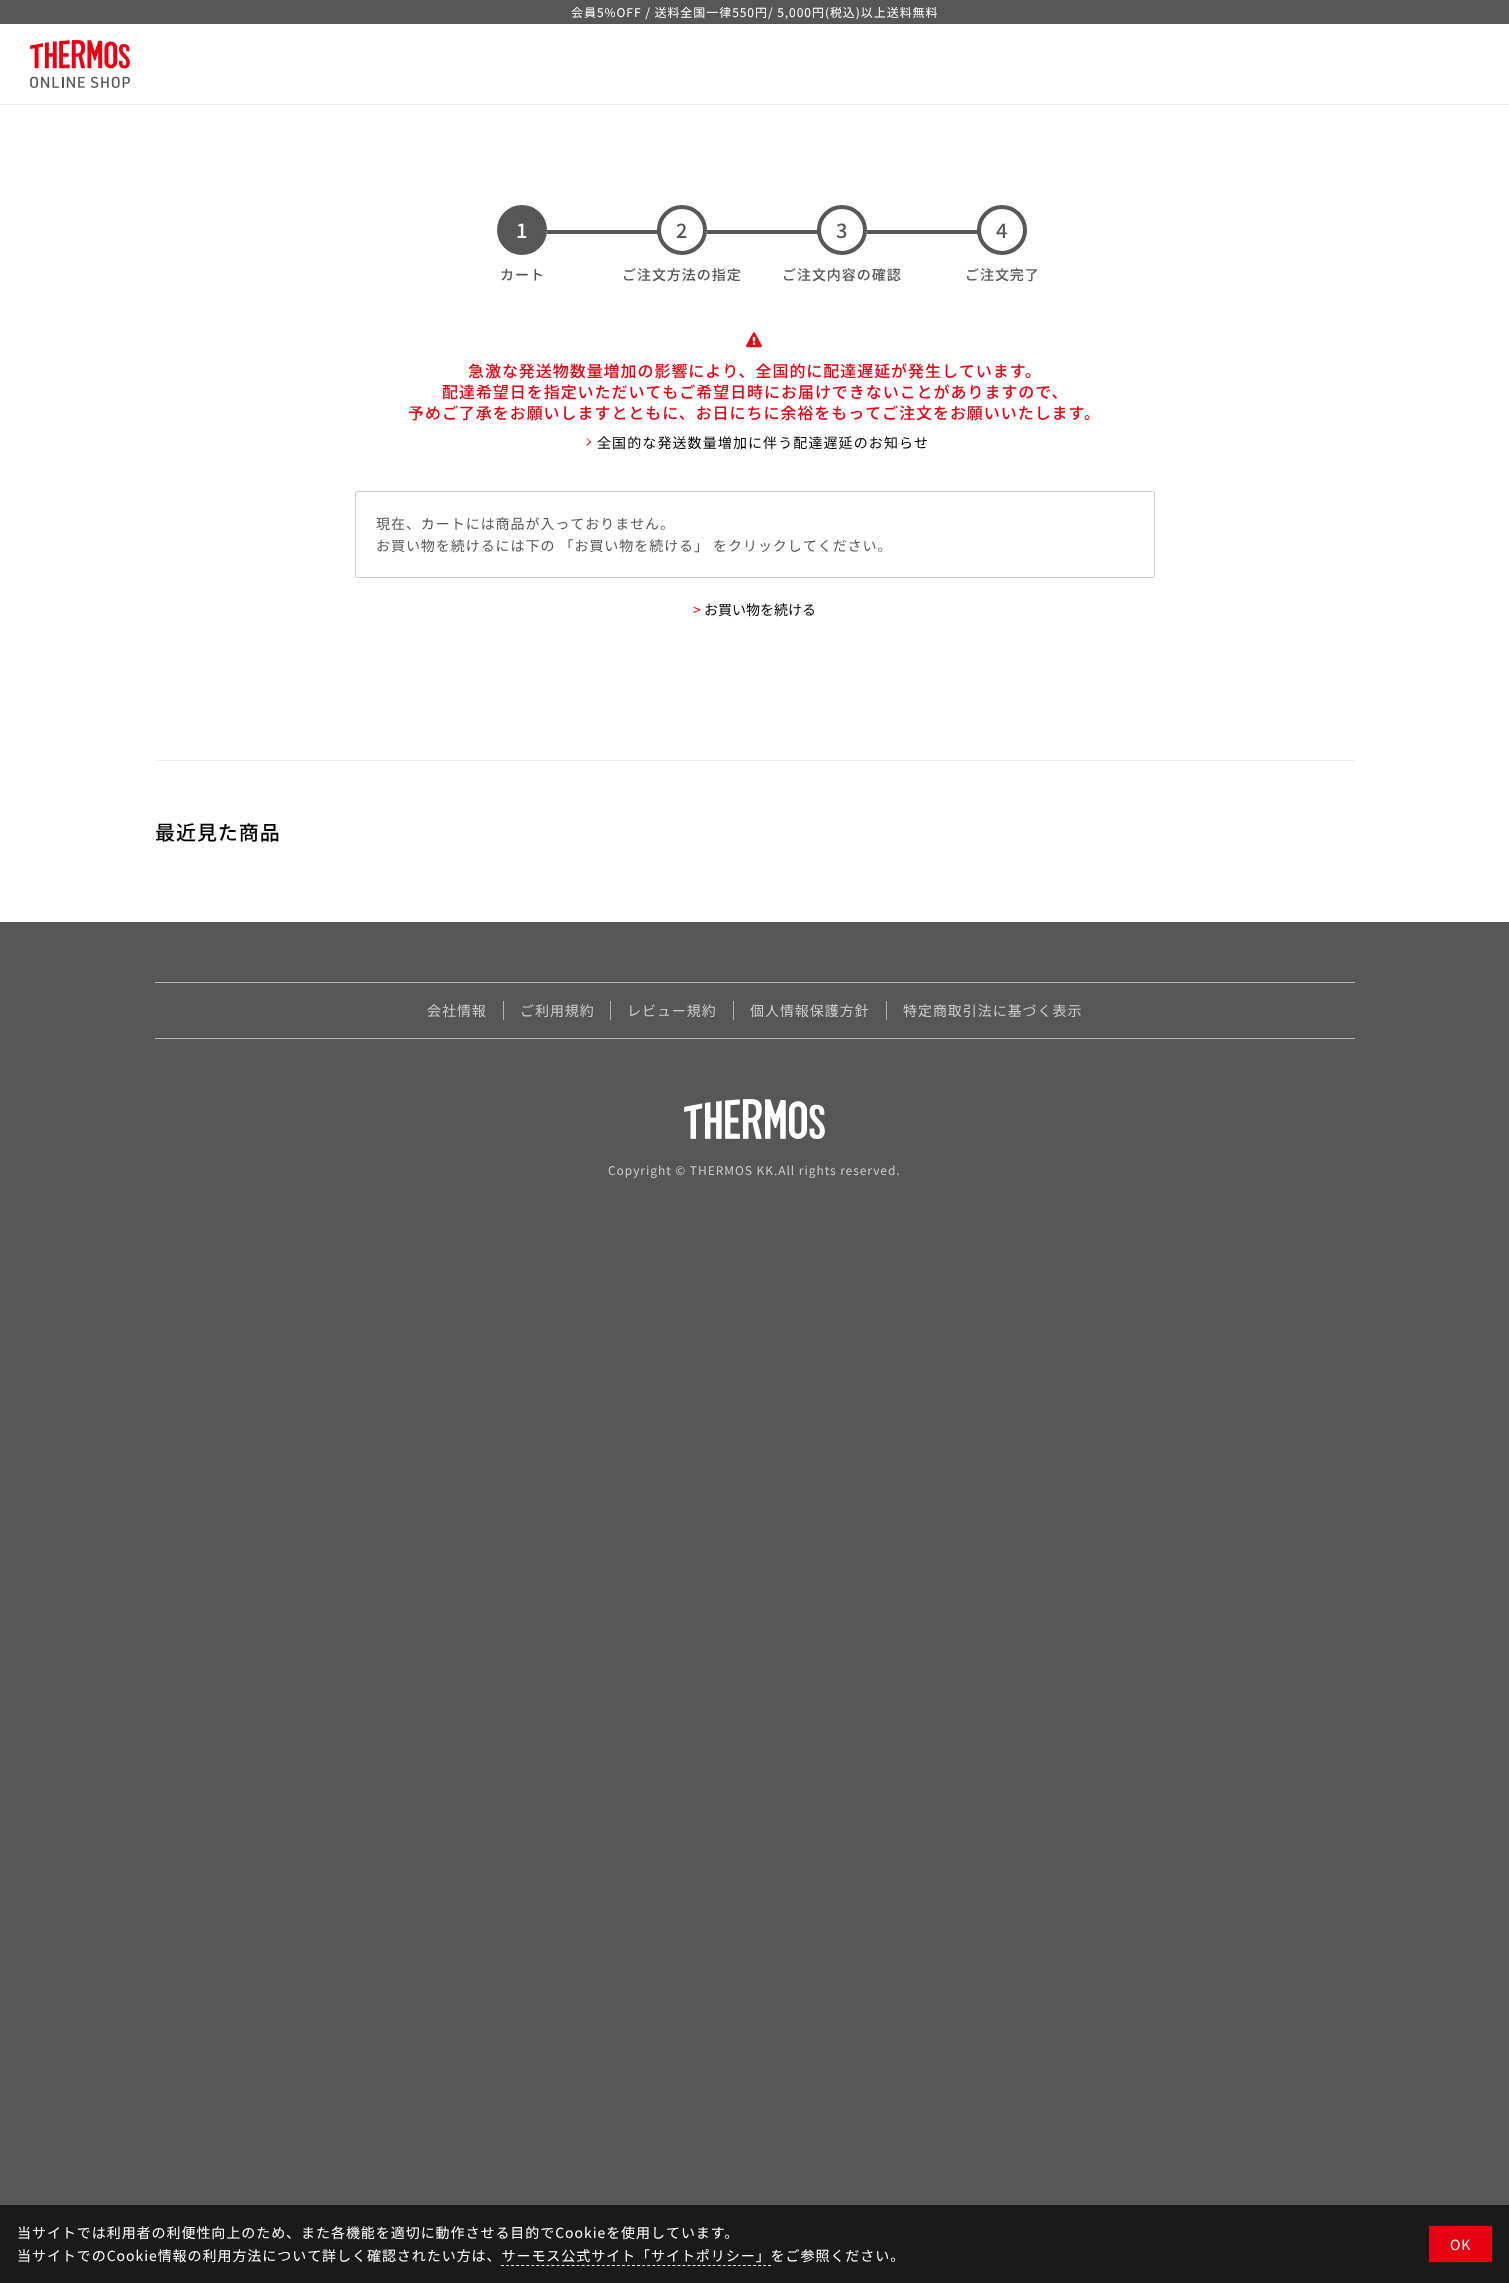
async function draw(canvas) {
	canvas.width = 1509;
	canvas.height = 2283;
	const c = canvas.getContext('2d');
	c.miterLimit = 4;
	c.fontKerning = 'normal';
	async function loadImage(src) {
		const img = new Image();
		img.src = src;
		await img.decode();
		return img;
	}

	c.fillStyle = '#575757';
	c.fillRect(0, 0, 1509, 2283);
	c.fillStyle = '#fff';
	c.fillRect(0, 24, 1509, 898);
	c.fillStyle = '#eee';
	c.fillRect(0, 104, 1509, 1);
	c.letterSpacing = '0.95px';
	c.font = '12px Noto Sans JP';
	c.fillStyle = '#fff';
	c.fillText('会員5%OFF / 送料全国一律550円/ 5,000円(税込)以上送料無料', 571, 17);
	c.drawImage(await loadImage('img1.png'), 30, 40, 100, 48);
	c.fillStyle = '#575757';
	c.beginPath();
	c.arc(522, 230, 23, 0, 2 * Math.PI);
	c.fill();
	c.strokeStyle = '#575757';
	c.lineWidth = 4;
	c.stroke();
	c.letterSpacing = '0px';
	c.font = '500 20px Noto Sans JP';
	c.fillStyle = '#fff';
	c.fillText('1', 516, 238);
	c.fillStyle = '#575757';
	c.fillRect(547, 230, 112, 4);
	c.letterSpacing = '0.95px';
	c.font = '500 14px Noto Sans JP';
	c.fillText('カート', 500, 280);
	c.fillStyle = '#fff';
	c.beginPath();
	c.arc(682, 230, 23, 0, 2 * Math.PI);
	c.fill();
	c.stroke();
	c.letterSpacing = '0px';
	c.font = '500 20px Noto Sans JP';
	c.fillStyle = '#575757';
	c.fillText('2', 676, 238);
	c.fillRect(707, 230, 112, 4);
	c.letterSpacing = '0.95px';
	c.font = '500 14px Noto Sans JP';
	c.fillText('ご注文方法の指定', 622, 280);
	c.fillStyle = '#fff';
	c.beginPath();
	c.arc(842, 230, 23, 0, 2 * Math.PI);
	c.fill();
	c.stroke();
	c.letterSpacing = '0px';
	c.font = '500 20px Noto Sans JP';
	c.fillStyle = '#575757';
	c.fillText('3', 836, 238);
	c.fillRect(867, 230, 112, 4);
	c.letterSpacing = '0.95px';
	c.font = '500 14px Noto Sans JP';
	c.fillText('ご注文内容の確認', 782, 280);
	c.fillStyle = '#fff';
	c.beginPath();
	c.arc(1002, 230, 23, 0, 2 * Math.PI);
	c.fill();
	c.stroke();
	c.letterSpacing = '0px';
	c.font = '500 20px Noto Sans JP';
	c.fillStyle = '#575757';
	c.fillText('4', 996, 238);
	c.letterSpacing = '0.95px';
	c.font = '500 14px Noto Sans JP';
	c.fillText('ご注文完了', 965, 280);
	c.drawImage(await loadImage('img2.png'), 746, 332, 16, 16);
	c.font = '500 16px Noto Sans JP';
	c.fillStyle = '#e60012';
	for (const [text, x, y] of [
		['急激な発送物数量増加の影響により、全国的に配達遅延が発生しています。', 468, 377],
		['配達希望日を指定いただいてもご希望日時にお届けできないことがありますので、', 442, 398],
		['予めご了承をお願いしますとともに、お日にちに余裕をもってご注文をお願いいたします。', 408, 419],
	]) {
		c.fillText(text, x, y);
	}
	c.beginPath();
	c.moveTo(586.5, 438.5);
	c.lineTo(587, 438);
	c.lineTo(591, 442);
	c.lineTo(590.5, 442.5);
	c.closePath();
	c.fill();
	c.beginPath();
	c.moveTo(586.5, 445);
	c.lineTo(590.5, 441);
	c.lineTo(591, 442);
	c.lineTo(587, 446);
	c.closePath();
	c.fill();
	c.letterSpacing = '1.1px';
	c.font = '14px Noto Sans JP';
	c.fillStyle = '#000';
	c.fillText('全国的な発送数量増加に伴う配達遅延のお知らせ', 597, 448);
	c.beginPath();
	c.roundRect(355.5, 491.5, 799, 86, 1.5);
	c.strokeStyle = '#ccc';
	c.lineWidth = 1;
	c.stroke();
	c.letterSpacing = '0.95px';
	c.fillStyle = '#575757';
	c.fillText('現在、カートには商品が入っておりません。', 376, 529);
	c.fillText('お買い物を続けるには下の 「お買い物を続ける」 をクリックしてください。', 376, 551);
	c.fillStyle = '#e60012';
	c.fillText('>', 693, 615);
	c.letterSpacing = '0px';
	c.fillStyle = '#000';
	c.fillText('お買い物を続ける', 704, 615);
	c.fillStyle = '#eee';
	c.fillRect(155, 760, 1200, 1);
	c.letterSpacing = '0.95px';
	c.font = '500 20px Noto Sans JP';
	c.fillStyle = '#000';
	c.fillText('最近見た商品', 155, 840);
	c.fillStyle = '#b2b2b2';
	c.fillRect(155, 982, 1200, 1);
	c.fillRect(155, 1038, 1200, 1);
	c.font = '14px Noto Sans JP';
	c.fillStyle = '#ccc';
	c.fillText('会社情報', 427, 1016);
	c.fillStyle = '#b2b2b2';
	c.fillRect(503, 1001, 1, 19);
	c.fillStyle = '#ccc';
	c.fillText('ご利用規約', 520, 1016);
	c.fillStyle = '#b2b2b2';
	c.fillRect(610, 1001, 1, 19);
	c.fillStyle = '#ccc';
	c.fillText('レビュー規約', 627, 1016);
	c.fillStyle = '#b2b2b2';
	c.fillRect(733, 1001, 1, 19);
	c.fillStyle = '#ccc';
	c.fillText('個人情報保護方針', 750, 1016);
	c.fillStyle = '#b2b2b2';
	c.fillRect(886, 1001, 1, 19);
	c.fillStyle = '#ccc';
	c.fillText('特定商取引法に基づく表示', 903, 1016);
	c.drawImage(await loadImage('img3.png'), 684, 1099, 141, 40);
	c.font = '12px Noto Sans JP';
	c.fillText('Copyright © THERMOS KK.All rights reserved.', 608, 1175);
	c.fillStyle = '#1a1a1a';
	c.fillRect(0, 2205, 1509, 78);
	c.font = '14px Noto Sans JP';
	c.fillStyle = '#fff';
	c.fillText('当サイトでは利用者の利便性向上のため、また各機能を適切に動作させる目的でCookieを使用しています。', 17, 2238);
	c.fillText('当サイトでのCookie情報の利用方法について詳しく確認されたい方は、サーモス公式サイト「サイトポリシー」をご参照ください。', 17, 2261);
	c.beginPath();
	c.moveTo(501, 2265.5);
	c.lineTo(771, 2265.5);
	c.strokeStyle = '#fff';
	c.setLineDash([3, 2.04]);
	c.stroke();
	c.fillStyle = '#e60012';
	c.fillRect(1429, 2226, 63, 36);
	c.fillStyle = '#fff';
	c.fillText('OK', 1450, 2250);
}

draw(document.querySelector('canvas'));
